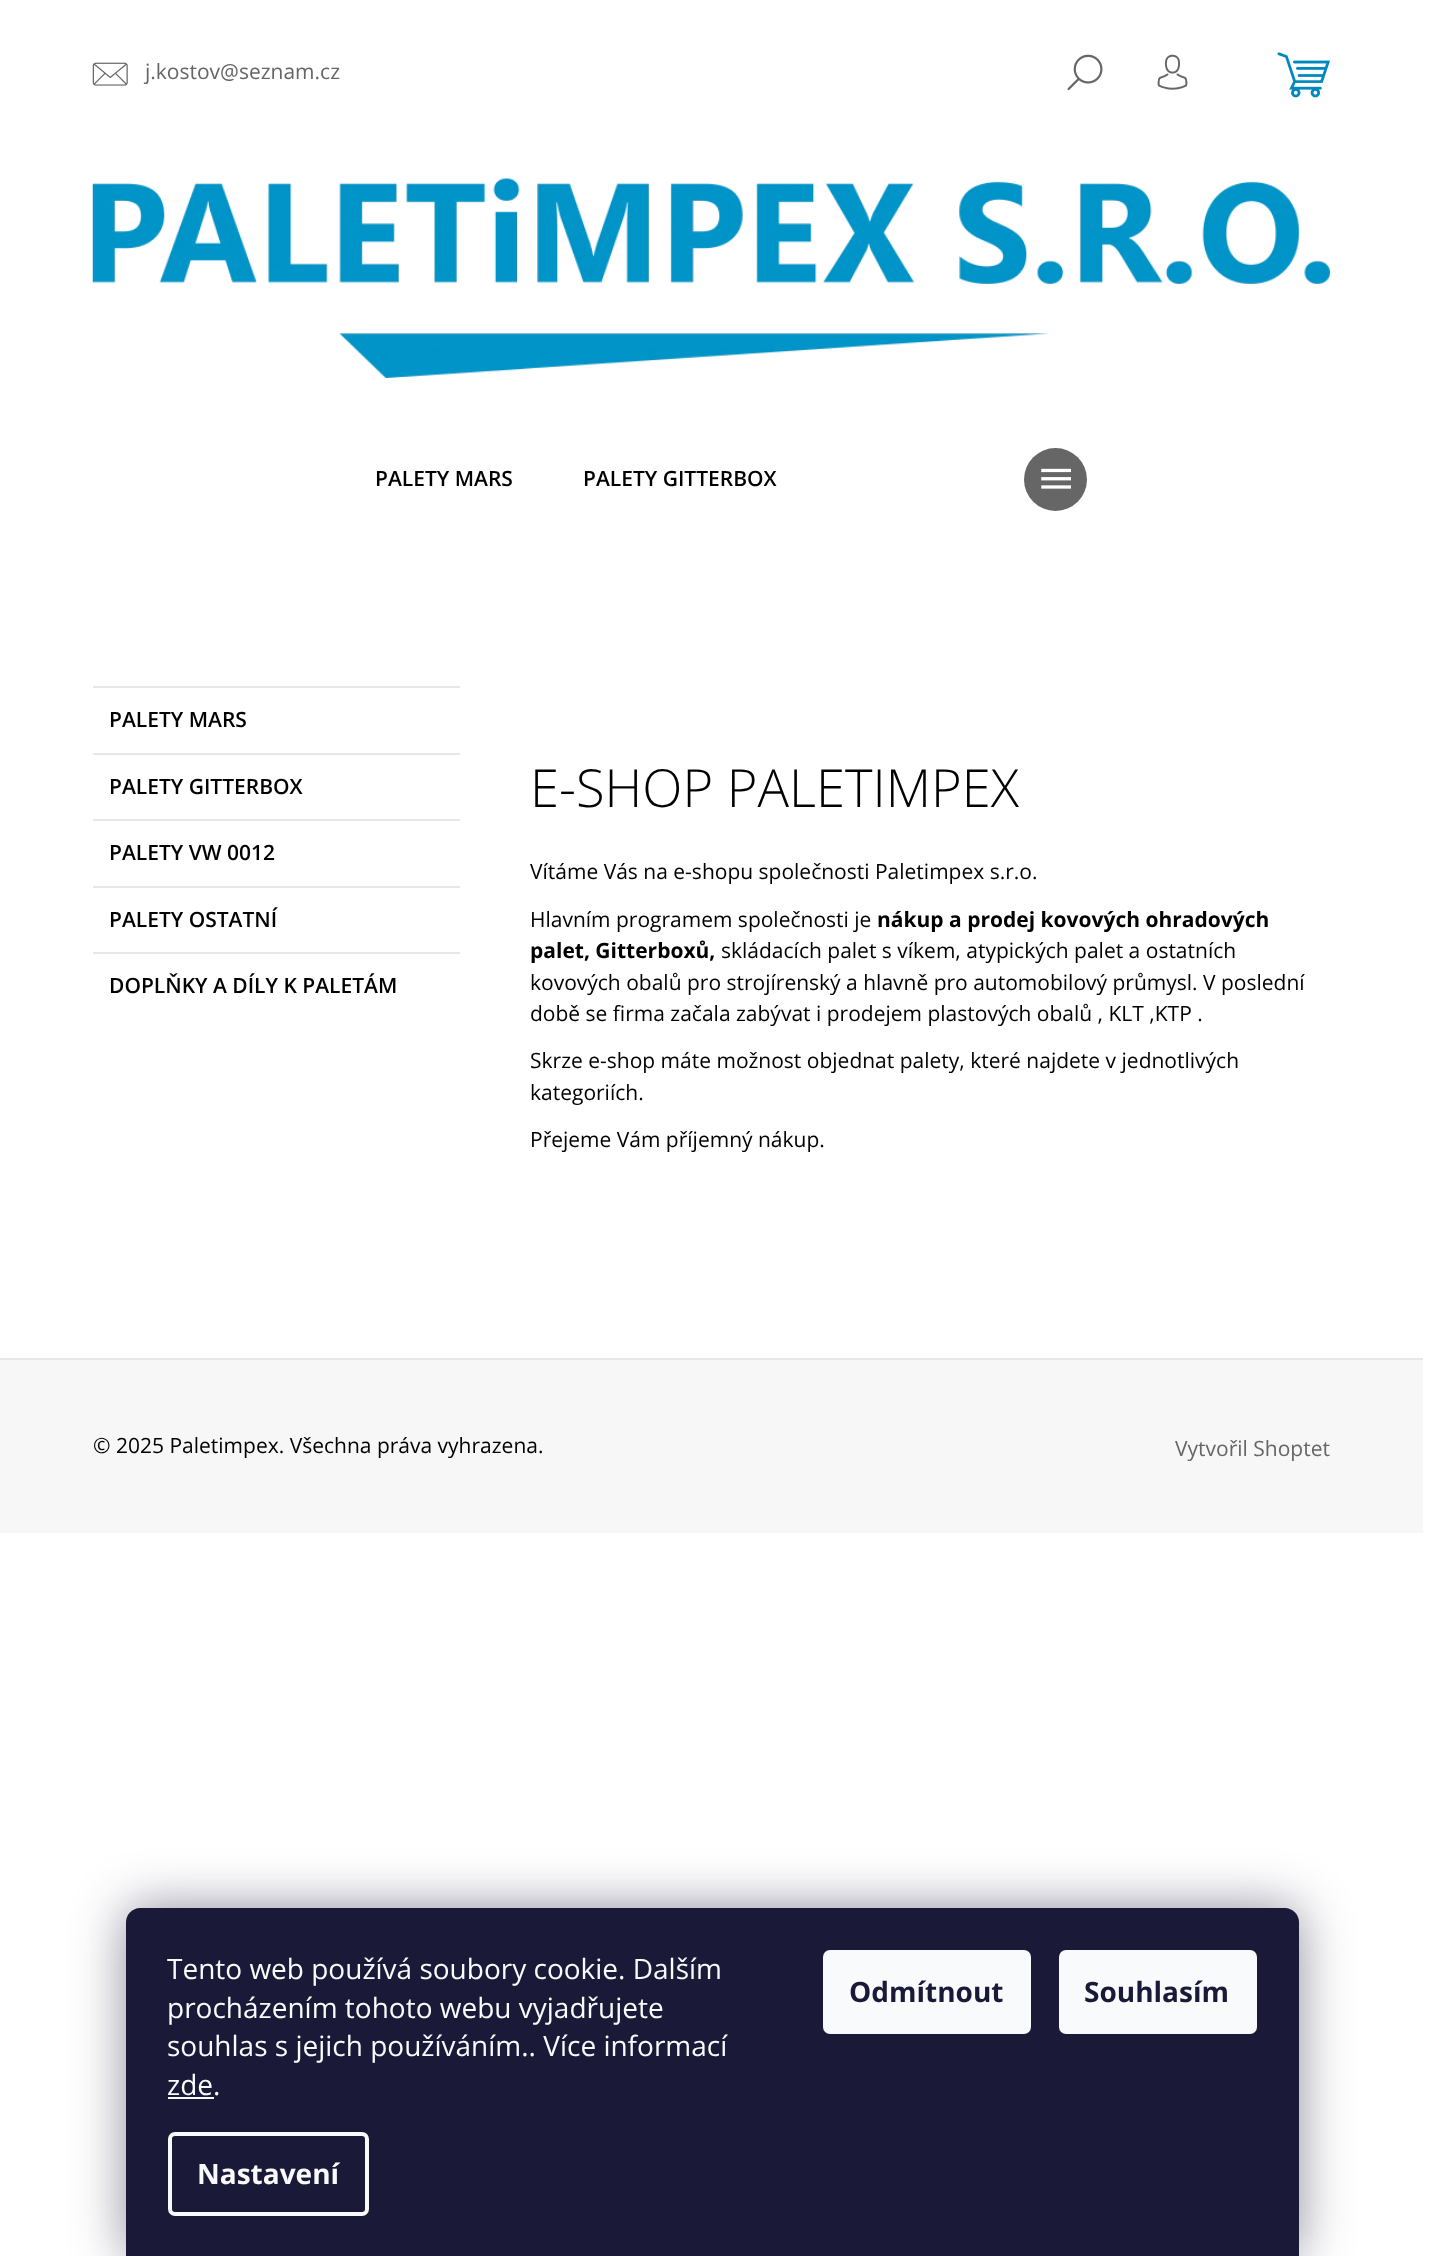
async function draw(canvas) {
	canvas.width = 1448;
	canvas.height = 2256;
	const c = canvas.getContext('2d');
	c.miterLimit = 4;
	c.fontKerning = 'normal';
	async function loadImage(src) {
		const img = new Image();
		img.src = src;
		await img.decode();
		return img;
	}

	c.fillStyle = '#fff';
	c.fillRect(0, 0, 1448, 2256);
	c.drawImage(await loadImage('img1.png'), 92, 62, 36, 24);
	c.font = '21px Open Sans';
	c.fillStyle = '#666';
	c.fillText('j.kostov@seznam.cz', 145, 79);
	c.drawImage(await loadImage('img2.png'), 1067, 54, 36, 37);
	c.drawImage(await loadImage('img3.png'), 1157, 54, 31, 36);
	c.drawImage(await loadImage('img4.png'), 1277, 52, 53, 46);
	c.drawImage(await loadImage('img5.png'), 92, 178, 1238, 200);
	c.font = '600 21px Open Sans';
	c.fillStyle = '#000';
	c.fillText('PALETY MARS', 375, 486);
	c.fillText('PALETY GITTERBOX', 583, 486);
	c.fillStyle = '#666';
	c.beginPath();
	c.arc(1055.5, 479.5, 31.5, 0, 2 * Math.PI);
	c.fill();
	c.drawImage(await loadImage('img6.png'), 1041, 468, 30, 21);
	c.fillStyle = '#e7e7e7';
	c.fillRect(93, 686, 367, 2);
	c.fillStyle = '#000';
	c.fillText('PALETY MARS', 109, 727);
	c.fillStyle = '#e7e7e7';
	c.fillRect(93, 753, 367, 2);
	c.fillStyle = '#000';
	c.fillText('PALETY GITTERBOX', 109, 794);
	c.fillStyle = '#e7e7e7';
	c.fillRect(93, 819, 367, 2);
	c.fillStyle = '#000';
	c.fillText('PALETY VW 0012', 109, 860);
	c.fillStyle = '#e7e7e7';
	c.fillRect(93, 886, 367, 2);
	c.fillStyle = '#000';
	c.fillText('PALETY OSTATNÍ', 109, 927);
	c.fillStyle = '#e7e7e7';
	c.fillRect(93, 952, 367, 2);
	c.fillStyle = '#000';
	c.fillText('DOPLŇKY A DÍLY K PALETÁM', 109, 993);
	c.font = '300 52.5px Open Sans';
	c.fillText('E-SHOP PALETIMPEX', 530, 807);
	c.font = '21px Open Sans';
	c.fillText('Vítáme Vás na e-shopu společnosti Paletimpex s.r.o.', 530, 879);
	c.fillText('Hlavním programem společnosti je', 530, 927);
	c.font = 'bold 21px Open Sans';
	c.fillText('nákup a prodej kovových ohradových', 877, 927);
	c.fillText('palet, Gitterboxů,', 530, 958);
	c.font = '21px Open Sans';
	for (const [text, x, y] of [
		['skládacích palet s víkem, atypických palet a ostatních', 721, 958],
		['kovových obalů pro strojírenský a hlavně pro automobilový průmysl. V poslední', 530, 990],
		['době se firma začala zabývat i prodejem plastových obalů , KLT ,KTP .', 530, 1021],
		['Skrze e-shop máte možnost objednat palety, které najdete v jednotlivých', 530, 1068],
		['kategoriích.', 530, 1100],
		['Přejeme Vám příjemný nákup.', 530, 1147],
	]) {
		c.fillText(text, x, y);
	}
	c.fillStyle = '#f7f7f7';
	c.fillRect(0, 1360, 1423, 173);
	c.fillStyle = '#e7e7e7';
	c.fillRect(0, 1358, 1423, 2);
	c.fillStyle = '#000';
	c.fillText('© 2025 Paletimpex. Všechna práva vyhrazena.', 93, 1453);
	c.fillStyle = '#666';
	c.fillText('Vytvořil Shoptet', 1175, 1456);
	c.fillStyle = '#1b193980';
	c.filter = 'blur(26px)';
	c.beginPath();
	c.roundRect(126, 1908, 1173, 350, 14);
	c.fill();
	c.filter = 'none';
	c.fillStyle = '#1a1937';
	c.beginPath();
	c.moveTo(140, 1908);
	c.lineTo(1285, 1908);
	c.bezierCurveTo(1292.5, 1908, 1299, 1914.5, 1299, 1922);
	c.lineTo(1299, 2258);
	c.lineTo(126, 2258);
	c.lineTo(126, 1922);
	c.bezierCurveTo(126, 1914.5, 132.5, 1908, 140, 1908);
	c.closePath();
	c.fill();
	c.font = '28px Open Sans';
	c.fillStyle = '#f8fafb';
	for (const [text, x, y] of [
		['Tento web používá soubory cookie. Dalším', 167, 1979],
		['procházením tohoto webu vyjadřujete', 167, 2018],
		['souhlas s jejich používáním.. Více informací', 167, 2056],
		['zde.', 167, 2095],
	]) {
		c.fillText(text, x, y);
	}
	c.fillRect(168, 2097, 46, 2);
	c.beginPath();
	c.roundRect(170, 2134, 197, 80, 5);
	c.strokeStyle = '#f8fafb';
	c.lineWidth = 4;
	c.stroke();
	c.font = 'bold 28px Open Sans';
	c.fillText('Nastavení', 197, 2184);
	c.beginPath();
	c.roundRect(823, 1950, 208, 84, 7);
	c.fill();
	c.fillStyle = '#1a1937';
	c.fillText('Odmítnout', 849, 2002);
	c.fillStyle = '#f8fafb';
	c.beginPath();
	c.roundRect(1059, 1950, 198, 84, 7);
	c.fill();
	c.fillStyle = '#1a1937';
	c.fillText('Souhlasím', 1084, 2002);
}

draw(document.querySelector('canvas'));
